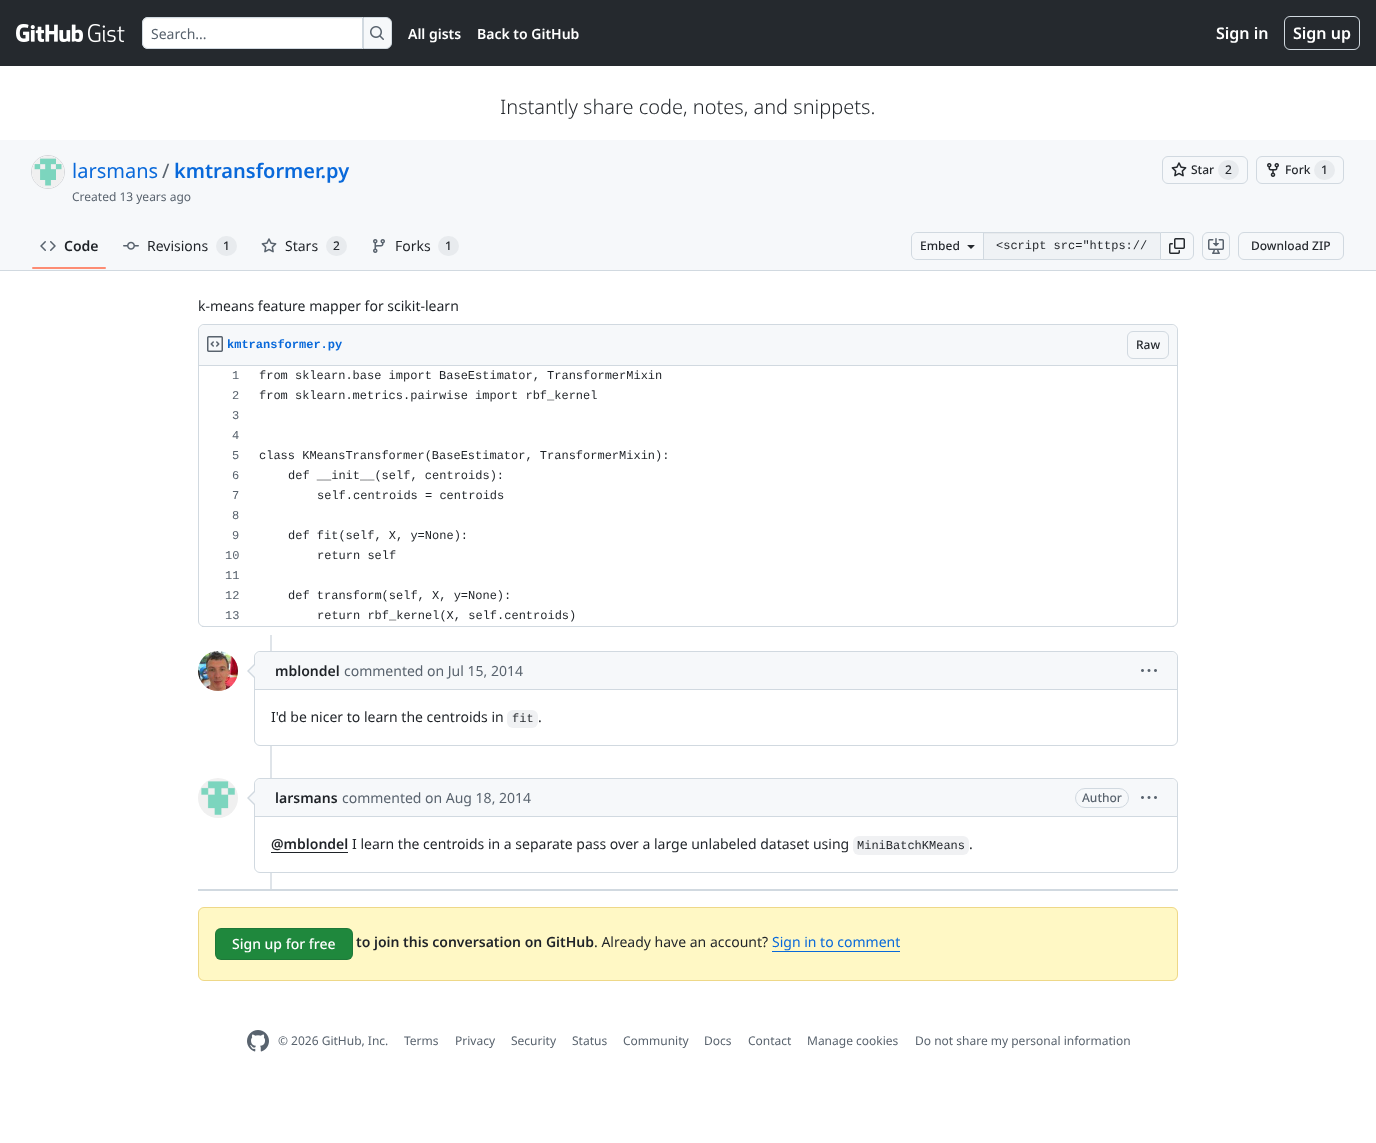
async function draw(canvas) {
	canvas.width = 1376;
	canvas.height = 1143;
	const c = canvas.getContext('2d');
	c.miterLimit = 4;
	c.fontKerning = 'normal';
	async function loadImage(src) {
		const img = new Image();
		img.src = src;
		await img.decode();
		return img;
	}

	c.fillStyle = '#fff';
	c.fillRect(0, 0, 1376, 1143);
	c.fillStyle = '#25292e';
	c.fillRect(0, 0, 1376, 66);
	c.drawImage(await loadImage('img1.png'), 16, 24, 67, 18);
	c.drawImage(await loadImage('img2.png'), 88, 24, 37, 19);
	c.fillStyle = '#fff';
	c.beginPath();
	c.roundRect(142, 17, 221, 32, [6, 0, 0, 6]);
	c.fill();
	c.fillStyle = '#f6f6f6';
	c.beginPath();
	c.moveTo(148, 19);
	c.lineTo(362, 19);
	c.lineTo(362, 18);
	c.lineTo(148, 18);
	c.bezierCurveTo(145, 18, 143, 21, 143, 24);
	c.bezierCurveTo(143, 21, 145, 19, 148, 19);
	c.closePath();
	c.fill();
	c.beginPath();
	c.roundRect(142.5, 17.5, 220, 31, [5.5, 0, 0, 5.5]);
	c.strokeStyle = '#d1d9e0';
	c.stroke();
	c.font = '14px Noto Sans';
	c.fillStyle = '#59636e';
	c.fillText('Search...', 151, 39);
	c.fillStyle = '#f6f8fa';
	c.beginPath();
	c.roundRect(363.5, 17.5, 28, 31, [0, 5.5, 5.5, 0]);
	c.fill();
	c.stroke();
	c.drawImage(await loadImage('img3.png'), 370, 26, 14, 14);
	c.font = '600 14px Noto Sans';
	c.fillStyle = '#fff';
	c.fillText('All gists', 408, 39);
	c.fillText('Back to GitHub', 477, 39);
	c.font = '600 16px Noto Sans';
	c.fillText('Sign in', 1216, 39);
	c.beginPath();
	c.roundRect(1284.5, 16.5, 75, 33, 5.5);
	c.stroke();
	c.fillText('Sign up', 1293, 39);
	c.font = '300 20px Noto Sans';
	c.fillStyle = '#1f2328';
	c.fillText('Instantly share code, notes, and snippets.', 500, 114);
	c.fillStyle = '#f6f8fa';
	c.fillRect(0, 140, 1376, 130);
	c.fillStyle = '#d1d9e0';
	c.fillRect(0, 270, 1376, 1);
	c.beginPath();
	c.arc(48, 172, 16.5, 0, 2 * Math.PI);
	c.strokeStyle = '#d6d8db';
	c.stroke();
	c.fillStyle = '#fff';
	c.beginPath();
	c.arc(48, 172, 16, 0, 2 * Math.PI);
	c.fill();
	c.drawImage(await loadImage('img4.png'), 32, 156, 32, 32);
	c.font = '20px Noto Sans';
	c.fillStyle = '#0969da';
	c.fillText('larsmans', 72, 178);
	c.fillStyle = '#59636e';
	c.fillText('/', 162, 178);
	c.font = '600 20px Noto Sans';
	c.fillStyle = '#0969da';
	c.fillText('kmtransformer.py', 174, 178);
	c.font = '12px Noto Sans';
	c.fillStyle = '#59636e';
	c.fillText('Created 13 years ago', 72, 201);
	c.beginPath();
	c.roundRect(1162.5, 156.5, 85, 27, 5.5);
	c.strokeStyle = '#d1d9e0';
	c.stroke();
	c.drawImage(await loadImage('img5.png'), 1171, 162, 16, 15);
	c.font = '500 12px Noto Sans';
	c.fillStyle = '#25292e';
	c.fillText('Star', 1191, 174);
	c.fillStyle = '#e8ebee';
	c.beginPath();
	c.roundRect(1218, 160, 21, 20, 10);
	c.fill();
	c.fillStyle = '#25292e';
	c.fillText('2', 1225, 174);
	c.beginPath();
	c.roundRect(1256.5, 156.5, 87, 27, 5.5);
	c.stroke();
	c.drawImage(await loadImage('img6.png'), 1267, 163, 12, 14);
	c.fillText('Fork', 1285, 174);
	c.fillStyle = '#e8ebee';
	c.beginPath();
	c.roundRect(1314, 160, 21, 20, 10);
	c.fill();
	c.fillStyle = '#25292e';
	c.fillText('1', 1321, 174);
	c.drawImage(await loadImage('img7.png'), 40, 241, 16, 10);
	c.font = '600 14px Noto Sans';
	c.fillStyle = '#1f2328';
	c.fillText('Code', 64, 251);
	c.fillStyle = '#fd8c73';
	c.beginPath();
	c.roundRect(32, 267, 74, 2, 1);
	c.fill();
	c.drawImage(await loadImage('img8.png'), 123, 241, 16, 9);
	c.font = '14px Noto Sans';
	c.fillStyle = '#1f2328';
	c.fillText('Revisions', 147, 251);
	c.fillStyle = '#e8ebee';
	c.beginPath();
	c.roundRect(216, 236, 21, 20, 10);
	c.fill();
	c.font = '500 12px Noto Sans';
	c.fillStyle = '#1f2328';
	c.fillText('1', 223, 250);
	c.drawImage(await loadImage('img9.png'), 261, 238, 16, 15);
	c.font = '14px Noto Sans';
	c.fillText('Stars', 285, 251);
	c.fillStyle = '#e8ebee';
	c.beginPath();
	c.roundRect(326, 236, 21, 20, 10);
	c.fill();
	c.font = '500 12px Noto Sans';
	c.fillStyle = '#1f2328';
	c.fillText('2', 333, 250);
	c.drawImage(await loadImage('img10.png'), 373, 239, 12, 14);
	c.font = '14px Noto Sans';
	c.fillText('Forks', 395, 251);
	c.fillStyle = '#e8ebee';
	c.beginPath();
	c.roundRect(438, 236, 21, 20, 10);
	c.fill();
	c.font = '500 12px Noto Sans';
	c.fillStyle = '#1f2328';
	c.fillText('1', 445, 250);
	c.fillStyle = '#d1d9e0';
	c.beginPath();
	c.moveTo(917, 232);
	c.lineTo(983, 232);
	c.lineTo(983, 260);
	c.lineTo(917, 260);
	c.bezierCurveTo(914, 260, 911, 257, 911, 254);
	c.lineTo(911, 238);
	c.bezierCurveTo(911, 235, 914, 232, 917, 232);
	c.closePath();
	c.moveTo(917, 233);
	c.lineTo(983, 233);
	c.lineTo(983, 259);
	c.lineTo(917, 259);
	c.bezierCurveTo(914, 259, 912, 257, 912, 254);
	c.lineTo(912, 238);
	c.bezierCurveTo(912, 235, 914, 233, 917, 233);
	c.closePath();
	c.fill('evenodd');
	c.fillStyle = '#25292e';
	c.fillText('Embed', 920, 250);
	c.drawImage(await loadImage('img11.png'), 967, 245, 8, 4);
	for (const [x, y, w, h, color] of [
		[984, 234, 176, 25, '#eff2f5'],
		[984, 233, 176, 1, '#e7eaed'],
		[983, 232, 177, 1, '#d1d9e0'],
		[983, 259, 177, 1, '#d1d9e0'],
		[983, 232, 1, 28, '#d1d9e0'],
	]) {
		c.fillStyle = color;
		c.fillRect(x, y, w, h);
	}
	c.font = '12px Liberation Mono';
	c.fillStyle = '#1f2328';
	c.fillText('<script src="https://', 996, 249);
	c.beginPath();
	c.roundRect(1160.5, 232.5, 33, 27, [0, 5.5, 5.5, 0]);
	c.stroke();
	c.drawImage(await loadImage('img12.png'), 1169, 238, 16, 16);
	c.beginPath();
	c.roundRect(1202.5, 232.5, 27, 27, 5.5);
	c.stroke();
	c.drawImage(await loadImage('img13.png'), 1208, 238, 16, 16);
	c.beginPath();
	c.roundRect(1238.5, 232.5, 105, 27, 5.5);
	c.stroke();
	c.font = '500 12px Noto Sans';
	c.fillStyle = '#25292e';
	c.fillText('Download ZIP', 1251, 250);
	c.font = '14px Noto Sans';
	c.fillStyle = '#1f2328';
	c.fillText('k-means feature mapper for scikit-learn', 198, 311);
	c.beginPath();
	c.roundRect(198.5, 324.5, 979, 302, 5.5);
	c.stroke();
	c.fillStyle = '#f6f8fa';
	c.beginPath();
	c.roundRect(199, 325, 978, 41, [6, 6, 0, 0]);
	c.fill();
	c.fillStyle = '#d1d9e0';
	c.fillRect(199, 365, 978, 1);
	c.drawImage(await loadImage('img14.png'), 207, 336, 16, 16);
	c.font = 'bold 12px Liberation Mono';
	c.fillStyle = '#0969da';
	c.fillText('kmtransformer.py', 227, 348);
	c.beginPath();
	c.roundRect(1127.5, 331.5, 41, 27, 5.5);
	c.stroke();
	c.font = '500 12px Noto Sans';
	c.fillStyle = '#25292e';
	c.fillText('Raw', 1136, 349);
	c.fillStyle = '#d1d9e0';
	c.fillRect(202, 626, 972, 1);
	c.font = '12px Liberation Mono';
	c.fillStyle = '#59636e';
	c.fillText('1', 232, 379);
	c.fillStyle = '#1f2328';
	c.fillText('from sklearn.base import BaseEstimator, TransformerMixin', 259, 379);
	c.fillStyle = '#59636e';
	c.fillText('2', 232, 399);
	c.fillStyle = '#1f2328';
	c.fillText('from sklearn.metrics.pairwise import rbf_kernel', 259, 399);
	c.fillStyle = '#59636e';
	for (const [text, x, y] of [
		['3', 232, 419],
		['4', 232, 439],
		['5', 232, 459],
	]) {
		c.fillText(text, x, y);
	}
	c.fillStyle = '#1f2328';
	c.fillText('class KMeansTransformer(BaseEstimator, TransformerMixin):', 259, 459);
	c.fillStyle = '#59636e';
	c.fillText('6', 232, 479);
	c.fillStyle = '#1f2328';
	c.fillText('def __init__(self, centroids):', 288, 479);
	c.fillStyle = '#59636e';
	c.fillText('7', 232, 499);
	c.fillStyle = '#1f2328';
	c.fillText('self.centroids = centroids', 317, 499);
	c.fillStyle = '#59636e';
	c.fillText('8', 232, 519);
	c.fillText('9', 232, 539);
	c.fillStyle = '#1f2328';
	c.fillText('def fit(self, X, y=None):', 288, 539);
	c.fillStyle = '#59636e';
	c.fillText('10', 225, 559);
	c.fillStyle = '#1f2328';
	c.fillText('return self', 317, 559);
	c.fillStyle = '#59636e';
	c.fillText('11', 225, 579);
	c.fillText('12', 225, 599);
	c.fillStyle = '#1f2328';
	c.fillText('def transform(self, X, y=None):', 288, 599);
	c.fillStyle = '#59636e';
	c.fillText('13', 225, 619);
	c.fillStyle = '#1f2328';
	c.fillText('return rbf_kernel(X, self.centroids)', 317, 619);
	c.drawImage(await loadImage('img15.png'), 198, 651, 40, 40);
	c.fillStyle = '#dfe4e9';
	c.fillRect(270, 635, 2, 254);
	c.fillStyle = '#fff';
	c.beginPath();
	c.roundRect(254.5, 651.5, 923, 94, 5.5);
	c.fill();
	c.stroke();
	c.fillStyle = '#d1d9e0';
	c.beginPath();
	c.moveTo(247, 671);
	c.lineTo(255, 679);
	c.lineTo(255, 663);
	c.closePath();
	c.fill();
	c.fillStyle = '#f6f8fa';
	c.beginPath();
	c.roundRect(255, 652, 922, 38, [6, 6, 0, 0]);
	c.fill();
	c.beginPath();
	c.moveTo(249, 671);
	c.lineTo(257, 679);
	c.lineTo(257, 663);
	c.closePath();
	c.fill();
	c.fillStyle = '#d1d9e0';
	c.fillRect(255, 689, 922, 1);
	c.font = '600 14px Noto Sans';
	c.fillStyle = '#1f2328';
	c.fillText('mblondel', 275, 676);
	c.font = '14px Noto Sans';
	c.fillStyle = '#59636e';
	c.fillText('commented', 344, 676);
	c.fillText('on Jul 15, 2014', 427, 676);
	c.drawImage(await loadImage('img16.png'), 1141, 669, 16, 3);
	c.fillStyle = '#1f2328';
	c.fillText('I\'d be nicer to learn the centroids in', 271, 722);
	c.fillStyle = '#f0f1f3';
	c.beginPath();
	c.roundRect(507, 710, 31, 18, 6);
	c.fill();
	c.font = '12px Liberation Mono';
	c.fillStyle = '#1f2328';
	c.fillText('fit', 512, 722);
	c.font = '14px Noto Sans';
	c.fillText('.', 538, 722);
	c.drawImage(await loadImage('img17.png'), 198, 778, 40, 40);
	c.fillStyle = '#fff';
	c.beginPath();
	c.roundRect(254.5, 778.5, 923, 94, 5.5);
	c.fill();
	c.stroke();
	c.fillStyle = '#d1d9e0';
	c.beginPath();
	c.moveTo(247, 798);
	c.lineTo(255, 806);
	c.lineTo(255, 790);
	c.closePath();
	c.fill();
	c.fillStyle = '#f6f8fa';
	c.beginPath();
	c.roundRect(255, 779, 922, 38, [6, 6, 0, 0]);
	c.fill();
	c.beginPath();
	c.moveTo(249, 798);
	c.lineTo(257, 806);
	c.lineTo(257, 790);
	c.closePath();
	c.fill();
	c.fillStyle = '#d1d9e0';
	c.fillRect(255, 816, 922, 1);
	c.font = '600 14px Noto Sans';
	c.fillStyle = '#1f2328';
	c.fillText('larsmans', 275, 803);
	c.font = '14px Noto Sans';
	c.fillStyle = '#59636e';
	c.fillText('commented', 342, 803);
	c.fillText('on Aug 18, 2014', 425, 803);
	c.beginPath();
	c.roundRect(1075.5, 788.5, 53, 19, 9.5);
	c.stroke();
	c.font = '500 12px Noto Sans';
	c.fillText('Author', 1082, 802);
	c.drawImage(await loadImage('img16.png'), 1141, 796, 16, 3);
	c.font = '600 14px Noto Sans';
	c.fillStyle = '#1f2328';
	c.fillText('@mblondel', 271, 849);
	c.fillRect(271, 852, 77, 1);
	c.font = '14px Noto Sans';
	c.fillText('I learn the centroids in a separate pass over a large unlabeled dataset using', 352, 849);
	c.fillStyle = '#f0f1f3';
	c.beginPath();
	c.roundRect(853, 836, 116, 19, 6);
	c.fill();
	c.font = '12px Liberation Mono';
	c.fillStyle = '#1f2328';
	c.fillText('MiniBatchKMeans', 857, 849);
	c.font = '14px Noto Sans';
	c.fillText('.', 969, 849);
	c.fillStyle = '#d1d9e0';
	c.fillRect(198, 889, 980, 2);
	c.fillStyle = '#fff8c5';
	c.beginPath();
	c.roundRect(198, 907, 980, 74, 6);
	c.fill();
	c.beginPath();
	c.roundRect(198.5, 907.5, 979, 73, 5.5);
	c.strokeStyle = '#d4a72c66';
	c.stroke();
	c.fillStyle = '#1f883d';
	c.beginPath();
	c.roundRect(215, 928, 138, 32, 6);
	c.fill();
	c.beginPath();
	c.roundRect(215.5, 928.5, 137, 31, 5.5);
	c.strokeStyle = '#1f232826';
	c.stroke();
	c.font = '500 14px Noto Sans';
	c.fillStyle = '#fff';
	c.fillText('Sign up for free', 232, 949);
	c.font = '600 14px Noto Sans';
	c.fillStyle = '#1f2328';
	c.fillText('to join this conversation on GitHub', 356, 947);
	c.font = '14px Noto Sans';
	c.fillText('. Already have an account?', 594, 947);
	c.fillStyle = '#0969da';
	c.fillText('Sign in to comment', 772, 947);
	c.fillRect(772, 951, 128, 1);
	c.drawImage(await loadImage('img18.png'), 247, 1030, 22, 22);
	c.font = '12px Noto Sans';
	c.fillStyle = '#59636e';
	for (const [text, x, y] of [
		['© 2026 GitHub, Inc.', 278, 1045],
		['Terms', 404, 1045],
		['Privacy', 455, 1045],
		['Security', 511, 1045],
		['Status', 572, 1045],
		['Community', 623, 1045],
		['Docs', 704, 1045],
		['Contact', 748, 1045],
		['Manage cookies', 807, 1045],
		['Do not share my personal information', 915, 1045],
	]) {
		c.fillText(text, x, y);
	}
}

draw(document.querySelector('canvas'));
